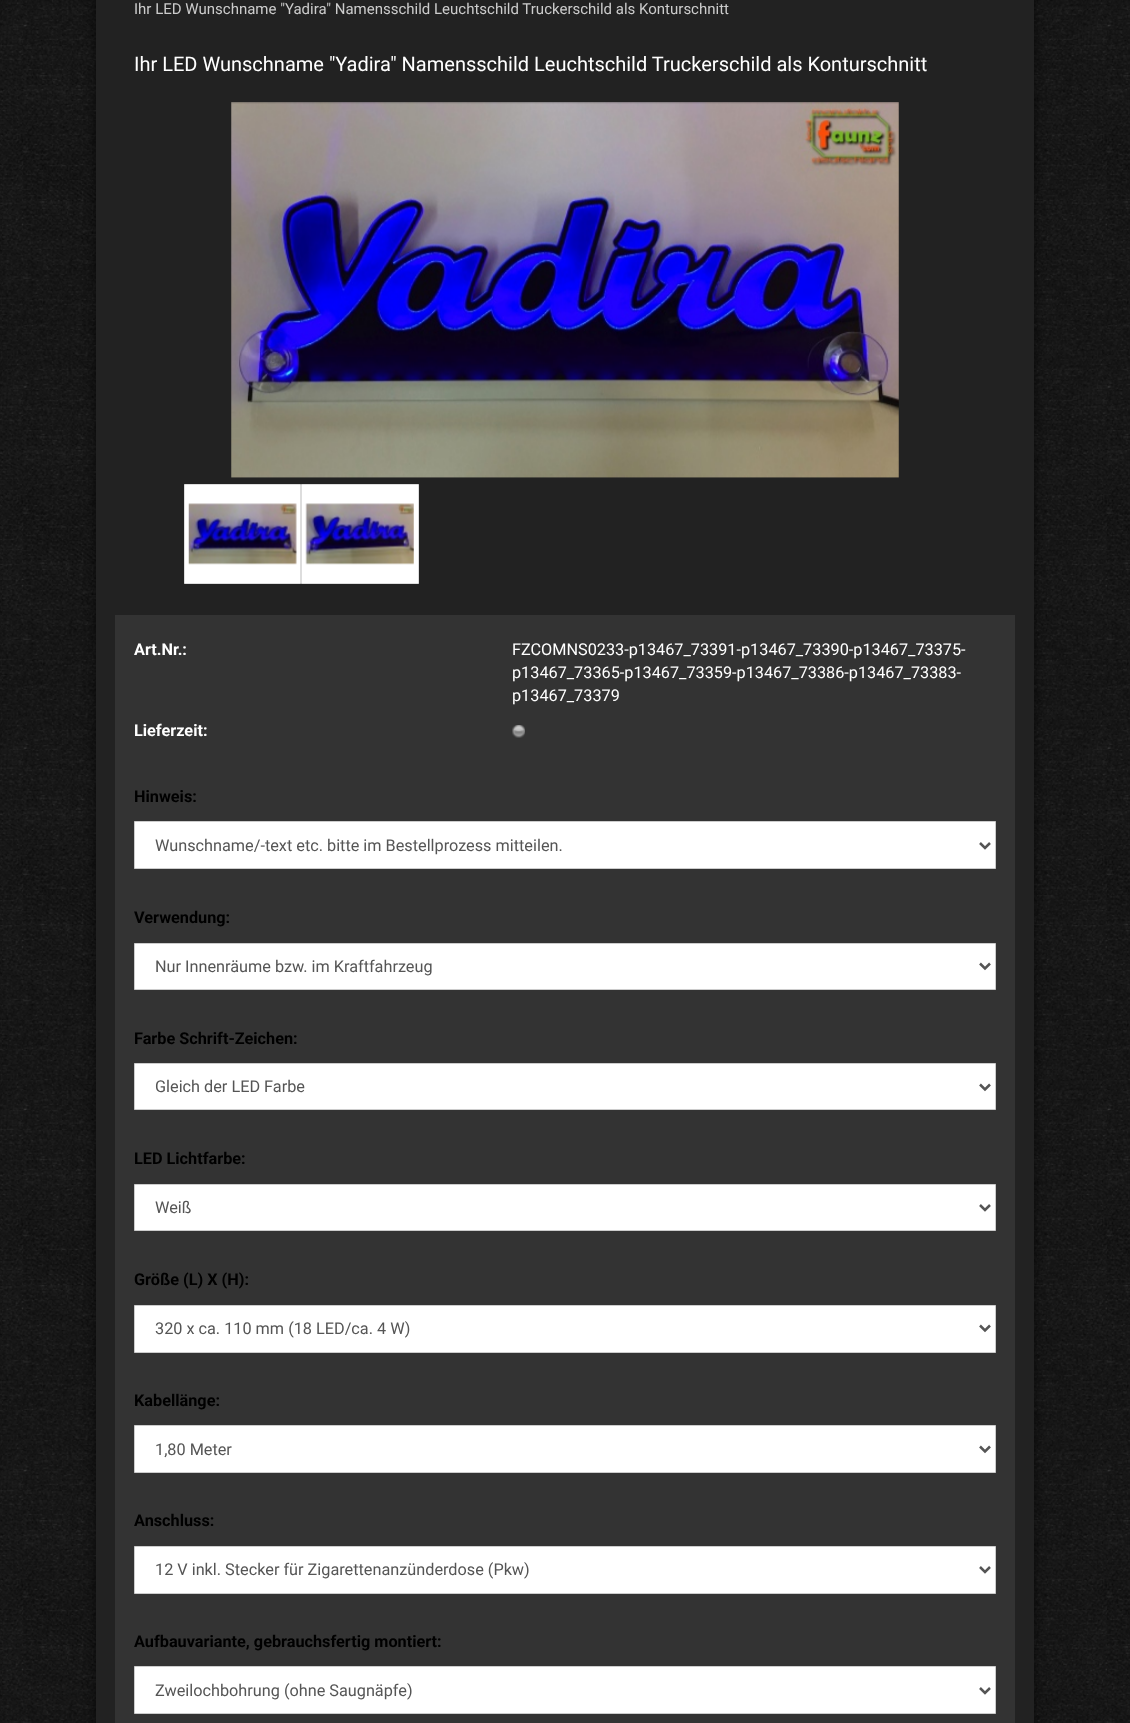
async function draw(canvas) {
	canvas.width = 1130;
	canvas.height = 1723;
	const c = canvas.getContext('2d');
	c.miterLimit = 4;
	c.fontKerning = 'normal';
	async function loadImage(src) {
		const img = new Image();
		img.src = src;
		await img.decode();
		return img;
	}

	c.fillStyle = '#fff';
	c.fillRect(0, 0, 1130, 1723);
	c.drawImage(await loadImage('img1.png'), 0, 0, 1130, 1723);
	c.fillStyle = '#00000099';
	c.filter = 'blur(6px)';
	c.beginPath();
	c.rect(96, -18, 938, 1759);
	c.fill();
	c.filter = 'none';
	c.fillStyle = '#222';
	c.fillRect(96, 0, 938, 1723);
	c.font = '15px Roboto';
	c.fillStyle = '#ccc';
	c.fillText('Ihr LED Wunschname "Yadira" Namensschild Leuchtschild Truckerschild als Konturschnitt', 134, 14);
	c.font = '20px Roboto';
	c.fillStyle = '#fff';
	c.fillText('Ihr LED Wunschname "Yadira" Namensschild Leuchtschild Truckerschild als Konturschnitt', 134, 71);
	c.drawImage(await loadImage('img2.png'), 231, 102, 668, 376);
	c.beginPath();
	c.rect(184.5, 484.5, 116, 99);
	c.fill();
	c.strokeStyle = '#ddd';
	c.stroke();
	c.drawImage(await loadImage('img3.png'), 188, 503, 109, 62);
	c.beginPath();
	c.rect(301.5, 484.5, 117, 99);
	c.fill();
	c.stroke();
	c.drawImage(await loadImage('img4.png'), 305, 503, 109, 62);
	c.fillStyle = '#333';
	c.fillRect(115, 615, 900, 1108);
	c.font = 'bold 16.25px Roboto';
	c.fillStyle = '#fff';
	c.fillText('Art.Nr.:', 134, 655);
	c.font = '16.25px Roboto';
	for (const [text, x, y] of [
		['FZCOMNS0233-p13467_73391-p13467_73390-p13467_73375-', 512, 655],
		['p13467_73365-p13467_73359-p13467_73386-p13467_73383-', 512, 678],
		['p13467_73379', 512, 701],
	]) {
		c.fillText(text, x, y);
	}
	c.font = 'bold 16.25px Roboto';
	c.fillText('Lieferzeit:', 134, 736);
	c.drawImage(await loadImage('img5.png'), 512, 725, 13, 13);
	c.fillStyle = '#000';
	c.fillText('Hinweis:', 134, 802);
	c.fillStyle = '#fff';
	c.beginPath();
	c.rect(134.5, 821.5, 861, 47);
	c.fill();
	c.strokeStyle = '#ccc';
	c.stroke();
	c.beginPath();
	c.moveTo(980, 843);
	c.lineTo(985, 848);
	c.lineTo(990, 843);
	c.strokeStyle = '#555';
	c.lineWidth = 2.5;
	c.stroke();
	c.font = '16.25px Roboto';
	c.fillStyle = '#555';
	c.fillText('Wunschname/-text etc. bitte im Bestellprozess mitteilen.', 155, 851);
	c.font = 'bold 16.25px Roboto';
	c.fillStyle = '#000';
	c.fillText('Verwendung:', 134, 923);
	c.fillStyle = '#fff';
	c.beginPath();
	c.rect(134.5, 943.5, 861, 46);
	c.fill();
	c.strokeStyle = '#ccc';
	c.lineWidth = 1;
	c.stroke();
	c.beginPath();
	c.moveTo(980, 963.5);
	c.lineTo(985, 968.5);
	c.lineTo(990, 963.5);
	c.strokeStyle = '#555';
	c.lineWidth = 2.5;
	c.stroke();
	c.font = '16.25px Roboto';
	c.fillStyle = '#555';
	c.fillText('Nur Innenräume bzw. im Kraftfahrzeug', 155, 972);
	c.font = 'bold 16.25px Roboto';
	c.fillStyle = '#000';
	c.fillText('Farbe Schrift-Zeichen:', 134, 1044);
	c.fillStyle = '#fff';
	c.beginPath();
	c.rect(134.5, 1063.5, 861, 46);
	c.fill();
	c.strokeStyle = '#ccc';
	c.lineWidth = 1;
	c.stroke();
	c.beginPath();
	c.moveTo(980, 1084.5);
	c.lineTo(985, 1089.5);
	c.lineTo(990, 1084.5);
	c.strokeStyle = '#555';
	c.lineWidth = 2.5;
	c.stroke();
	c.font = '16.25px Roboto';
	c.fillStyle = '#555';
	c.fillText('Gleich der LED Farbe', 155, 1092);
	c.font = 'bold 16.25px Roboto';
	c.fillStyle = '#000';
	c.fillText('LED Lichtfarbe:', 134, 1164);
	c.fillStyle = '#fff';
	c.beginPath();
	c.rect(134.5, 1184.5, 861, 46);
	c.fill();
	c.strokeStyle = '#ccc';
	c.lineWidth = 1;
	c.stroke();
	c.beginPath();
	c.moveTo(980, 1205);
	c.lineTo(985, 1210);
	c.lineTo(990, 1205);
	c.strokeStyle = '#555';
	c.lineWidth = 2.5;
	c.stroke();
	c.font = '16.25px Roboto';
	c.fillStyle = '#555';
	c.fillText('Weiß', 155, 1213);
	c.font = 'bold 16.25px Roboto';
	c.fillStyle = '#000';
	c.fillText('Größe (L) X (H):', 134, 1285);
	c.fillStyle = '#fff';
	c.beginPath();
	c.rect(134.5, 1305.5, 861, 47);
	c.fill();
	c.strokeStyle = '#ccc';
	c.lineWidth = 1;
	c.stroke();
	c.beginPath();
	c.moveTo(980, 1325.5);
	c.lineTo(985, 1330.5);
	c.lineTo(990, 1325.5);
	c.strokeStyle = '#555';
	c.lineWidth = 2.5;
	c.stroke();
	c.font = '16.25px Roboto';
	c.fillStyle = '#555';
	c.fillText('320 x ca. 110 mm (18 LED/ca. 4 W)', 155, 1334);
	c.font = 'bold 16.25px Roboto';
	c.fillStyle = '#000';
	c.fillText('Kabellänge:', 134, 1406);
	c.fillStyle = '#fff';
	c.beginPath();
	c.rect(134.5, 1425.5, 861, 47);
	c.fill();
	c.strokeStyle = '#ccc';
	c.lineWidth = 1;
	c.stroke();
	c.beginPath();
	c.moveTo(980, 1446.5);
	c.lineTo(985, 1451.5);
	c.lineTo(990, 1446.5);
	c.strokeStyle = '#555';
	c.lineWidth = 2.5;
	c.stroke();
	c.font = '16.25px Roboto';
	c.fillStyle = '#555';
	c.fillText('1,80 Meter', 155, 1455);
	c.font = 'bold 16.25px Roboto';
	c.fillStyle = '#000';
	c.fillText('Anschluss:', 134, 1526);
	c.fillStyle = '#fff';
	c.beginPath();
	c.rect(134.5, 1546.5, 861, 47);
	c.fill();
	c.strokeStyle = '#ccc';
	c.lineWidth = 1;
	c.stroke();
	c.beginPath();
	c.moveTo(980, 1567);
	c.lineTo(985, 1572);
	c.lineTo(990, 1567);
	c.strokeStyle = '#555';
	c.lineWidth = 2.5;
	c.stroke();
	c.font = '16.25px Roboto';
	c.fillStyle = '#555';
	c.fillText('12 V inkl. Stecker für Zigarettenanzünderdose (Pkw)', 155, 1575);
	c.font = 'bold 16.25px Roboto';
	c.fillStyle = '#000';
	c.fillText('Aufbauvariante, gebrauchsfertig montiert:', 134, 1647);
	c.fillStyle = '#fff';
	c.beginPath();
	c.rect(134.5, 1666.5, 861, 47);
	c.fill();
	c.strokeStyle = '#ccc';
	c.lineWidth = 1;
	c.stroke();
	c.beginPath();
	c.moveTo(980, 1688);
	c.lineTo(985, 1693);
	c.lineTo(990, 1688);
	c.strokeStyle = '#555';
	c.lineWidth = 2.5;
	c.stroke();
	c.font = '16.25px Roboto';
	c.fillStyle = '#555';
	c.fillText('Zweilochbohrung (ohne Saugnäpfe)', 155, 1696);
}

draw(document.querySelector('canvas'));
